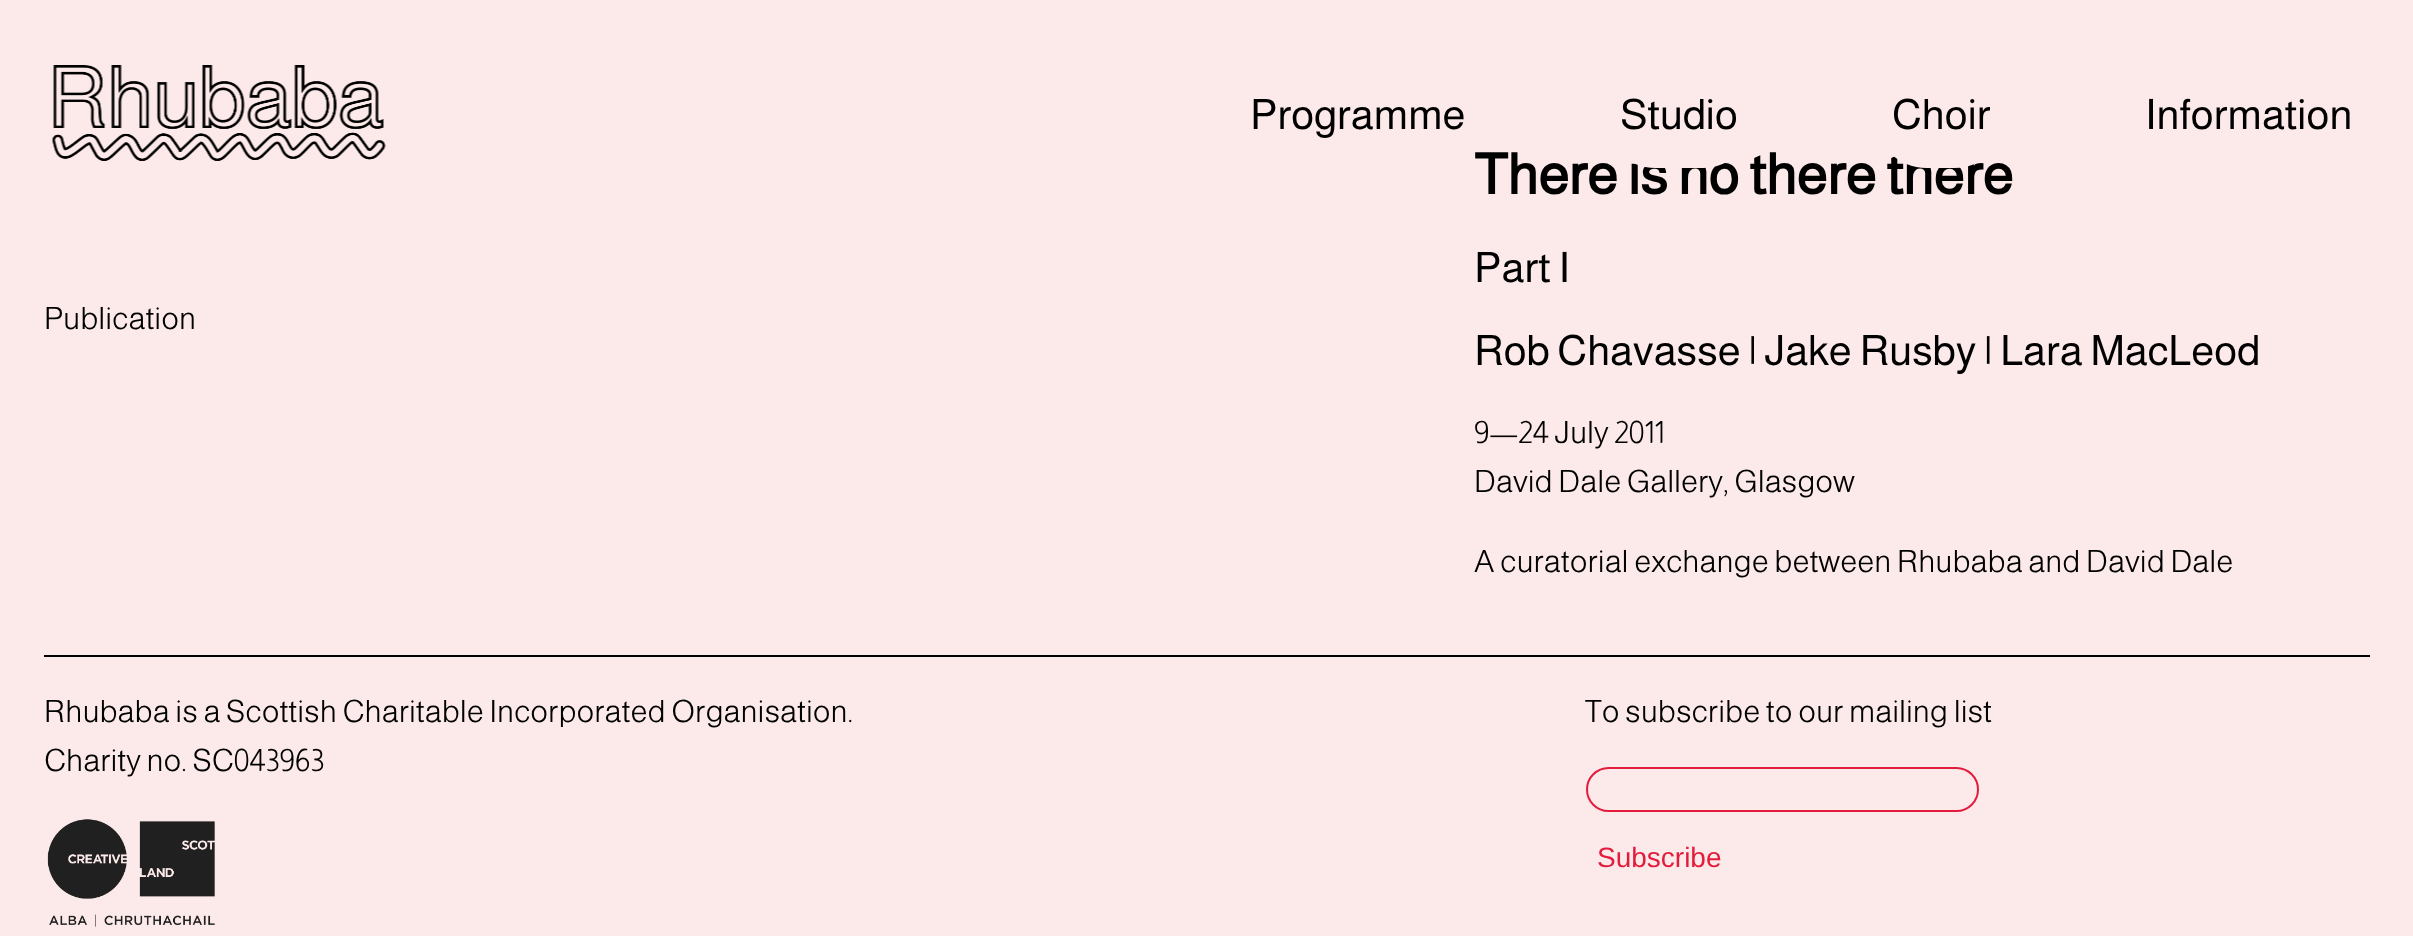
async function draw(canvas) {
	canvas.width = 2413;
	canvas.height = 936;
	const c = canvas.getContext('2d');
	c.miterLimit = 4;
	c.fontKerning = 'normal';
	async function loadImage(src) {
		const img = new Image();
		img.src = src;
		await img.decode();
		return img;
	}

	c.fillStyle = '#fce9e9';
	c.fillRect(0, 0, 2413, 936);
	c.drawImage(await loadImage('img1.png'), 52, 65, 334, 96);
	c.font = '42px Almarai';
	c.fillStyle = '#000';
	c.fillText('Programme', 1250, 129);
	c.font = 'bold 56px Almarai';
	c.fillText('There is no there there', 1474, 194);
	c.fillStyle = '#fce9e9';
	c.beginPath();
	c.roundRect(1603, 63, 152, 105, 52.5);
	c.fill();
	c.font = '42px Almarai';
	c.fillStyle = '#000';
	c.fillText('Studio', 1620, 129);
	c.fillStyle = '#fce9e9';
	c.beginPath();
	c.roundRect(1874, 63, 133, 105, 52.5);
	c.fill();
	c.fillStyle = '#000';
	c.fillText('Choir', 1892, 129);
	c.fillText('Information', 2145, 129);
	c.font = '300 30.8px Almarai';
	c.fillText('Publication', 44, 329);
	c.font = '42px Almarai';
	c.fillText('Part I', 1474, 282);
	c.fillText('Rob Chavasse | Jake Rusby | Lara MacLeod', 1474, 365);
	c.font = '300 30.8px Almarai';
	for (const [text, x, y] of [
		['9—24 July 2011', 1474, 443],
		['David Dale Gallery, Glasgow', 1474, 492],
		['A curatorial exchange between Rhubaba and David Dale', 1474, 572],
	]) {
		c.fillText(text, x, y);
	}
	c.fillRect(44, 655, 2326, 2);
	c.fillText('Rhubaba is a Scottish Charitable Incorporated Organisation.', 44, 722);
	c.fillText('Charity no. SC043963', 44, 771);
	c.drawImage(await loadImage('img2.png'), 47, 819, 168, 108);
	c.fillText('To subscribe to our mailing list', 1585, 722);
	c.beginPath();
	c.roundRect(1587, 768, 391, 43, 21.5);
	c.strokeStyle = '#e31c3d';
	c.lineWidth = 2;
	c.stroke();
	c.font = '28px Liberation Sans';
	c.fillStyle = '#e31c3d';
	c.fillText('Subscribe', 1597, 867);
}

draw(document.querySelector('canvas'));
